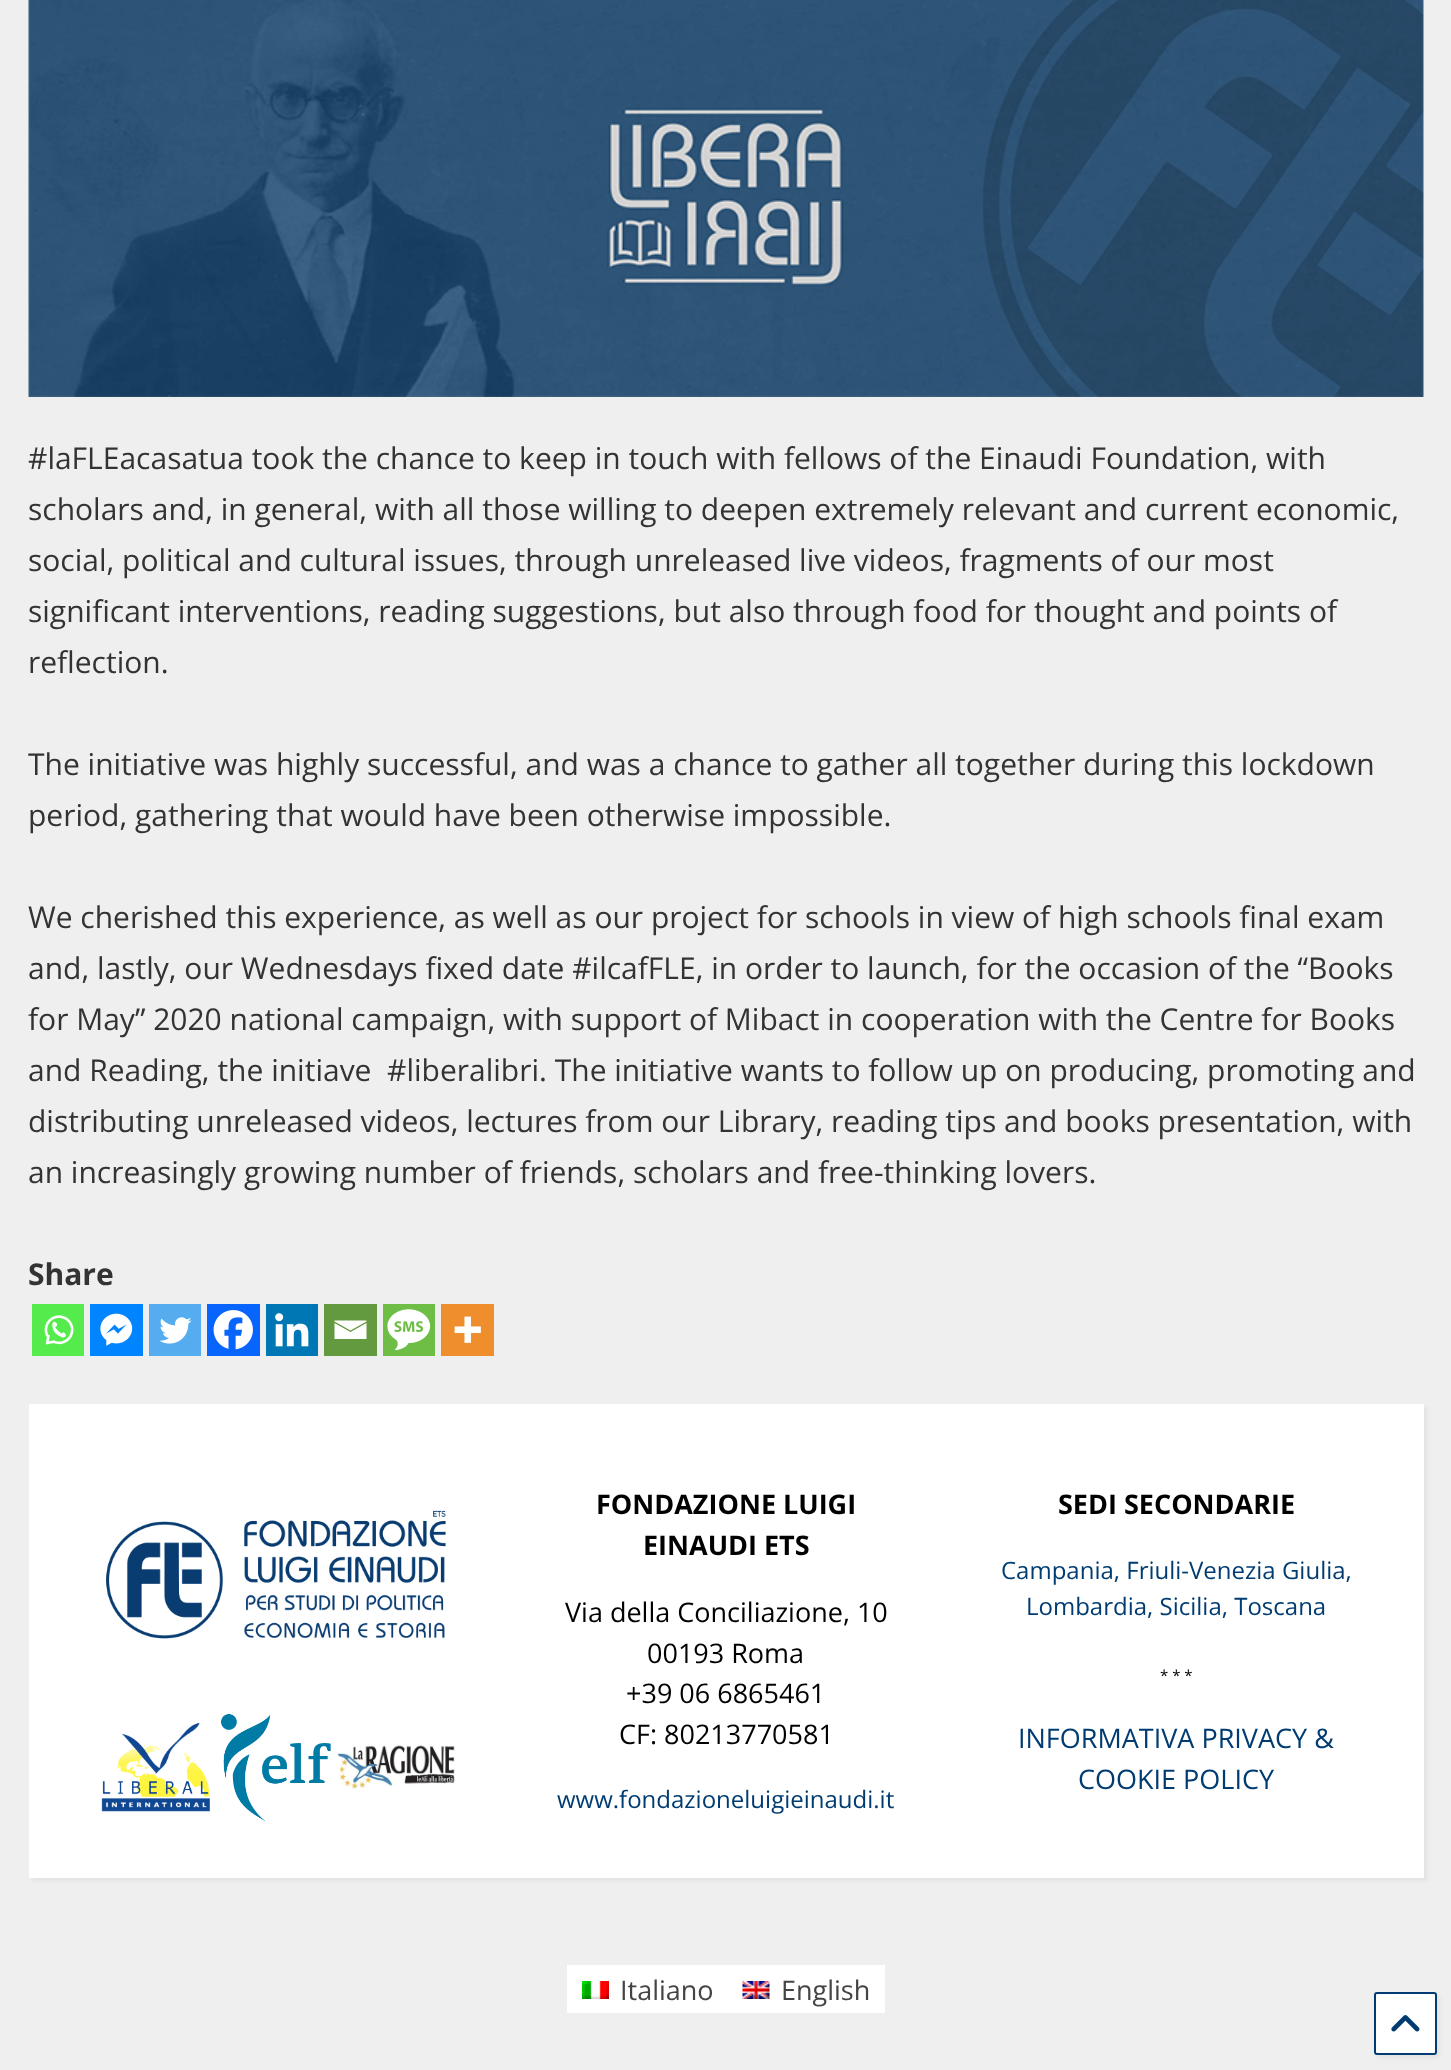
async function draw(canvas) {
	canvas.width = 1451;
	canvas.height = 2070;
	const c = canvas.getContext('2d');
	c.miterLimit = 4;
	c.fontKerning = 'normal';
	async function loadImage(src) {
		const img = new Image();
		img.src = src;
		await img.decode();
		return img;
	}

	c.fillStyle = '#efefef';
	c.fillRect(0, 0, 1451, 2070);
	c.drawImage(await loadImage('img1.png'), 28, 0, 1396, 397);
	c.font = '30px Open Sans';
	c.fillStyle = '#333';
	for (const [text, x, y] of [
		['#laFLEacasatua took the chance to keep in touch with fellows of the Einaudi Foundation, with', 28, 469],
		['scholars and, in general, with all those willing to deepen extremely relevant and current economic,', 28, 520],
		['social, political and cultural issues, through unreleased live videos, fragments of our most', 28, 571],
		['significant interventions, reading suggestions, but also through food for thought and points of', 28, 622],
		['reflection.', 28, 673],
		['The initiative was highly successful, and was a chance to gather all together during this lockdown', 28, 775],
		['period, gathering that would have been otherwise impossible.', 28, 826],
		['We cherished this experience, as well as our project for schools in view of high schools final exam', 28, 928],
		['and, lastly, our Wednesdays fixed date #ilcafFLE, in order to launch, for the occasion of the “Books', 28, 979],
		['for May” 2020 national campaign, with support of Mibact in cooperation with the Centre for Books', 28, 1030],
		['and Reading, the initiave  #liberalibri. The initiative wants to follow up on producing, promoting and', 28, 1081],
		['distributing unreleased videos, lectures from our Library, reading tips and books presentation, with', 28, 1132],
		['an increasingly growing number of friends, scholars and free-thinking lovers.', 28, 1183],
	]) {
		c.fillText(text, x, y);
	}
	c.font = 'bold 30px Open Sans';
	c.fillText('Share', 28, 1285);
	c.fillStyle = '#55eb4c';
	c.fillRect(32, 1304, 52, 52);
	c.drawImage(await loadImage('img2.png'), 44, 1315, 30, 30);
	c.fillStyle = '#0084ff';
	c.fillRect(90, 1304, 53, 52);
	c.drawImage(await loadImage('img3.png'), 100, 1313, 33, 33);
	c.fillStyle = '#55acee';
	c.fillRect(149, 1304, 52, 52);
	c.drawImage(await loadImage('img4.png'), 159, 1317, 33, 27);
	c.fillStyle = '#0765fe';
	c.fillRect(207, 1304, 53, 52);
	c.drawImage(await loadImage('img5.png'), 213, 1310, 40, 40);
	c.fillStyle = '#0077b5';
	c.fillRect(266, 1304, 52, 52);
	c.drawImage(await loadImage('img6.png'), 275, 1313, 34, 34);
	c.fillStyle = '#649a3f';
	c.fillRect(324, 1304, 53, 52);
	c.fillStyle = '#fff';
	c.beginPath();
	c.moveTo(333, 1320.5);
	c.lineTo(366.5, 1320.5);
	c.lineTo(366.5, 1321.5);
	c.lineTo(350.5, 1330.5);
	c.lineTo(334.5, 1321.5);
	c.lineTo(334.5, 1320.5);
	c.moveTo(334.5, 1323);
	c.lineTo(350.5, 1332);
	c.lineTo(366.5, 1323);
	c.lineTo(366.5, 1339);
	c.lineTo(334.5, 1339);
	c.lineTo(334.5, 1323);
	c.fill();
	c.fillStyle = '#6ebe45';
	c.fillRect(383, 1304, 52, 52);
	c.drawImage(await loadImage('img7.png'), 387, 1309, 44, 42);
	c.fillStyle = '#ee8e2d';
	c.fillRect(441, 1304, 53, 52);
	c.drawImage(await loadImage('img8.png'), 454, 1316, 27, 27);
	c.fillStyle = '#0000000d';
	c.filter = 'blur(2px)';
	c.beginPath();
	c.rect(32, 1407, 1395, 474);
	c.fill();
	c.filter = 'none';
	c.fillStyle = '#fff';
	c.fillRect(29, 1404, 1395, 474);
	c.drawImage(await loadImage('img9.png'), 106, 1510, 340, 129);
	c.drawImage(await loadImage('img10.png'), 101, 1722, 109, 90);
	c.drawImage(await loadImage('img11.png'), 221, 1714, 110, 108);
	c.drawImage(await loadImage('img12.png'), 337, 1745, 118, 44);
	c.font = 'bold 27px Open Sans';
	c.fillStyle = '#000';
	c.fillText('FONDAZIONE LUIGI', 596, 1514);
	c.fillText('EINAUDI ETS', 643, 1555);
	c.font = '27px Open Sans';
	for (const [text, x, y] of [
		['Via della Conciliazione, 10', 565, 1622],
		['00193 Roma', 647, 1663],
		['+39 06 6865461', 626, 1703],
		['CF: 80213770581', 619, 1744],
	]) {
		c.fillText(text, x, y);
	}
	c.font = '24px Open Sans';
	c.fillStyle = '#003c71';
	c.fillText('www.fondazioneluigieinaudi.it', 557, 1808);
	c.font = 'bold 27px Open Sans';
	c.fillStyle = '#000';
	c.fillText('SEDI SECONDARIE', 1058, 1514);
	c.font = '24px Open Sans';
	c.fillStyle = '#003c71';
	c.fillText('Campania, Friuli-Venezia Giulia,', 1001, 1579);
	c.fillText('Lombardia, Sicilia, Toscana', 1026, 1615);
	c.font = '15px Open Sans';
	c.fillStyle = '#000';
	c.fillText('* * *', 1160, 1681);
	c.font = '27px Open Sans';
	c.fillStyle = '#003c71';
	c.fillText('INFORMATIVA PRIVACY &', 1018, 1748);
	c.fillText('COOKIE POLICY', 1078, 1789);
	c.fillStyle = '#fff';
	c.fillRect(567, 1965, 318, 48);
	c.drawImage(await loadImage('img13.png'), 582, 1981, 27, 18);
	c.fillStyle = '#444';
	c.fillText('Italiano', 620, 2000);
	c.drawImage(await loadImage('img14.png'), 742, 1981, 28, 18);
	c.fillText('English', 781, 2000);
	c.fillStyle = '#0000000d';
	c.filter = 'blur(2px)';
	c.beginPath();
	c.roundRect(1377, 1995, 63, 63, 3);
	c.fill();
	c.filter = 'none';
	c.fillStyle = '#fff';
	c.beginPath();
	c.roundRect(1375, 1993, 61, 61, 2);
	c.fill();
	c.strokeStyle = '#003c71';
	c.lineWidth = 2;
	c.stroke();
	c.drawImage(await loadImage('img15.png'), 1391, 2015, 29, 17);
}

draw(document.querySelector('canvas'));
